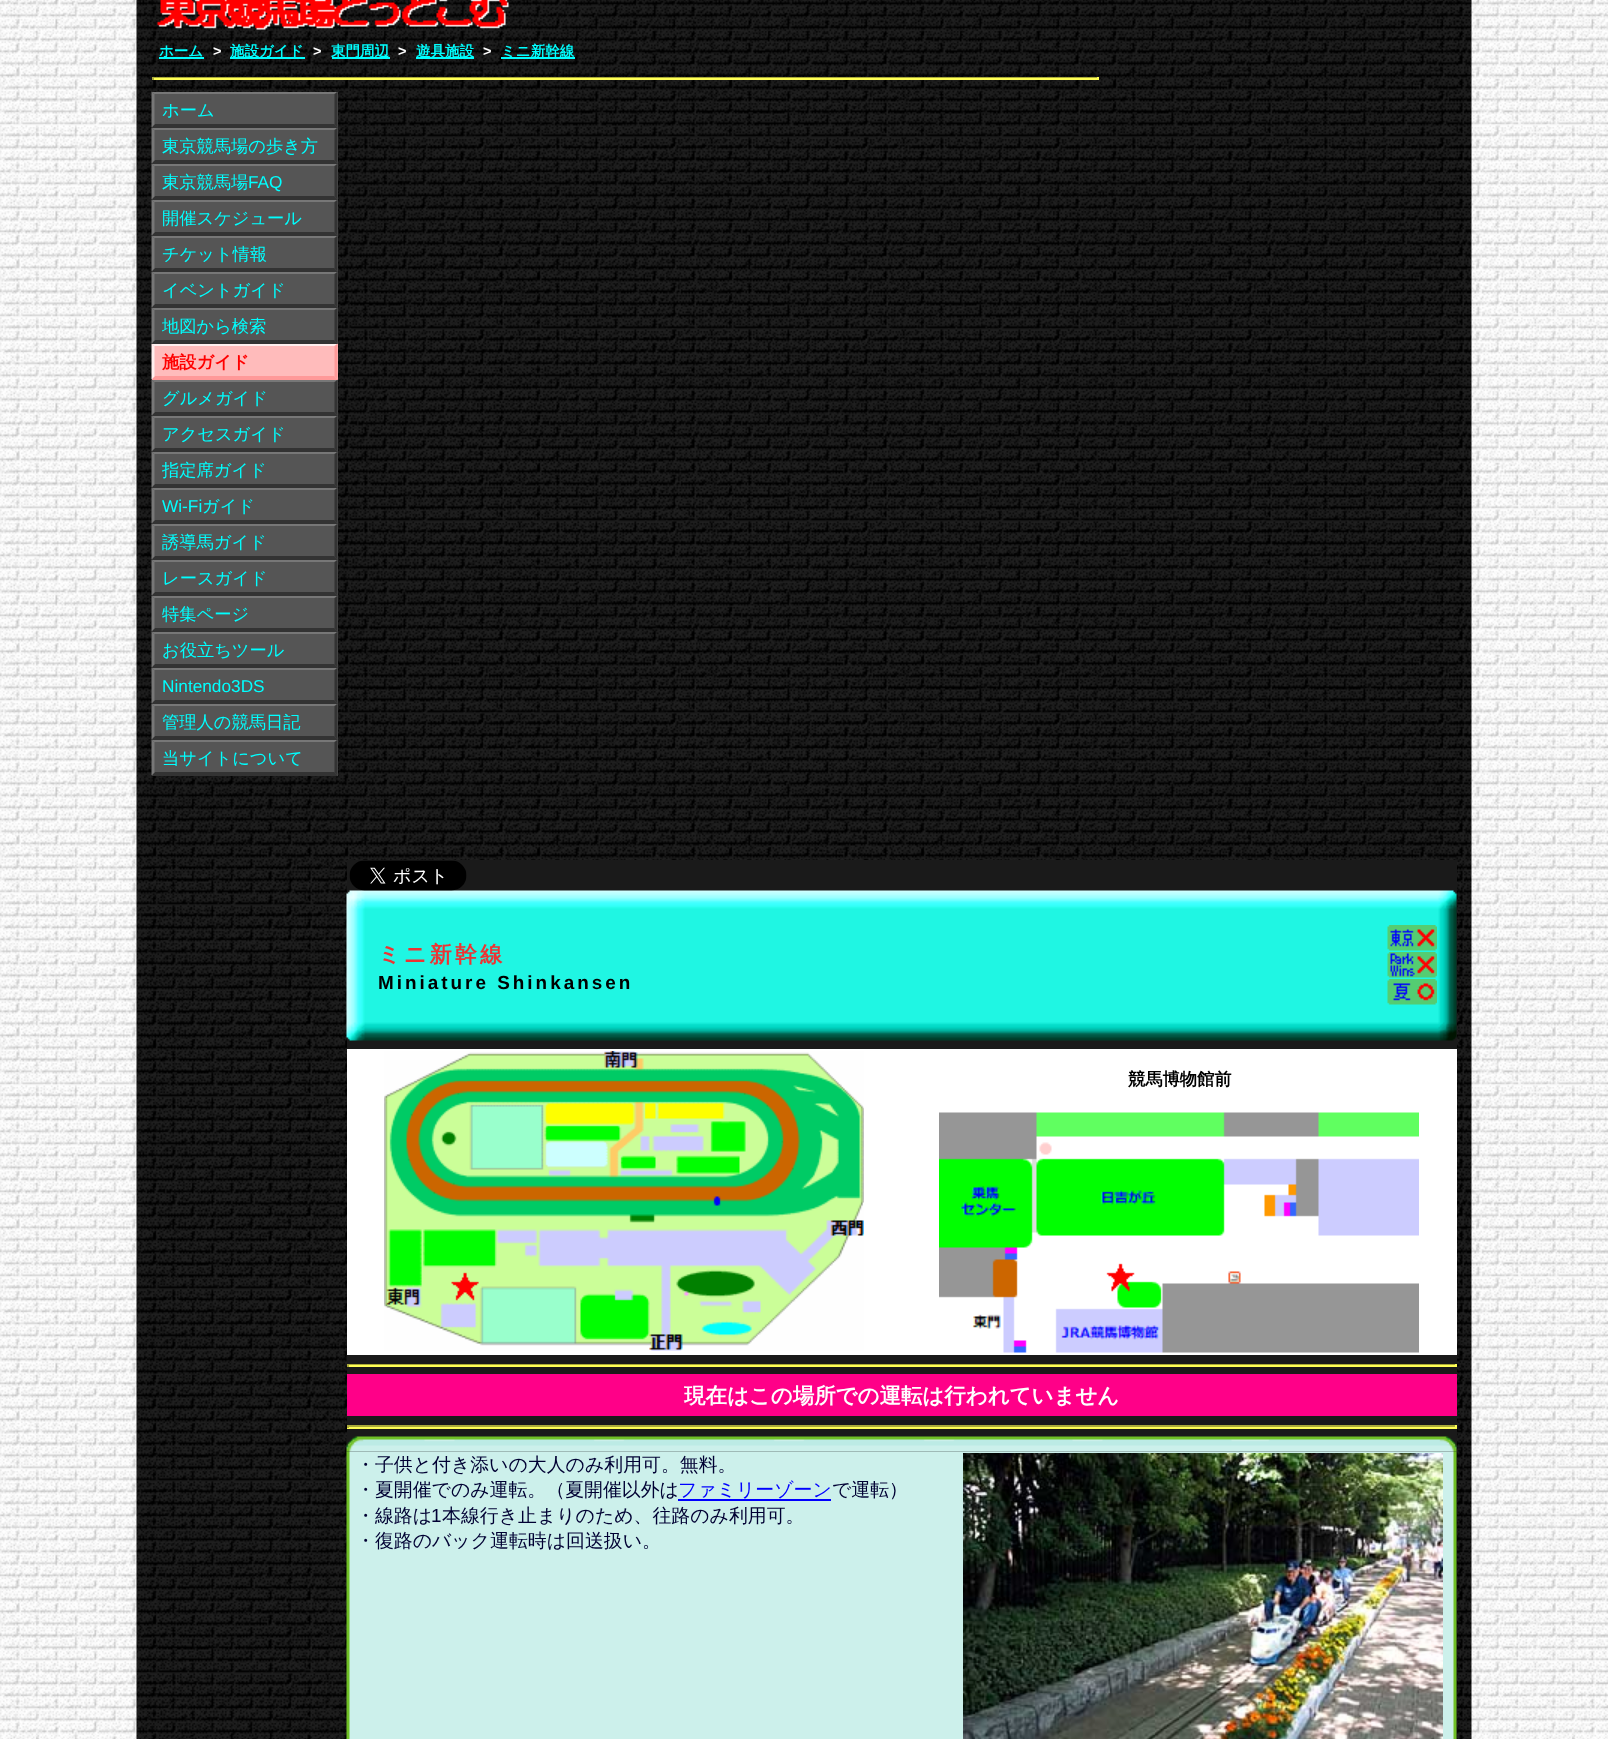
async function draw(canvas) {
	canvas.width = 1608;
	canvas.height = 1739;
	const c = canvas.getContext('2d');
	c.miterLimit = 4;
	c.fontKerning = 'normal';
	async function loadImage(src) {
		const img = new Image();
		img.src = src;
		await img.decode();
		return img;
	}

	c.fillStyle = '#fff';
	c.fillRect(0, 0, 1608, 1739);
	c.drawImage(await loadImage('img1.png'), 0, 0, 1608, 1739);
	c.drawImage(await loadImage('img2.png'), 136, 0, 1336, 1739);
	c.drawImage(await loadImage('img3.png'), 157, 0, 352, 30);
	c.fillStyle = '#0ff';
	c.fillRect(159, 57, 45, 2);
	c.font = 'bold 14.5px WenQuanYi Zen Hei';
	c.fillText('ホーム', 159, 56);
	c.font = 'bold 14.5px Liberation Sans';
	c.fillStyle = '#fff';
	c.fillText('>', 213, 56);
	c.fillStyle = '#0ff';
	c.fillRect(230, 57, 75, 2);
	c.font = 'bold 14.5px WenQuanYi Zen Hei';
	c.fillText('施設ガイド', 230, 56);
	c.font = 'bold 14.5px Liberation Sans';
	c.fillStyle = '#fff';
	c.fillText('>', 313, 56);
	c.fillStyle = '#0ff';
	c.fillRect(332, 57, 58, 2);
	c.font = 'bold 14.5px WenQuanYi Zen Hei';
	c.fillText('東門周辺', 331, 56);
	c.font = 'bold 14.5px Liberation Sans';
	c.fillStyle = '#fff';
	c.fillText('>', 398, 56);
	c.fillStyle = '#0ff';
	c.fillRect(416, 57, 58, 2);
	c.font = 'bold 14.5px WenQuanYi Zen Hei';
	c.fillText('遊具施設', 416, 56);
	c.font = 'bold 14.5px Liberation Sans';
	c.fillStyle = '#fff';
	c.fillText('>', 483, 56);
	c.fillStyle = '#0ff';
	c.fillRect(501, 57, 74, 2);
	c.font = 'bold 14.5px WenQuanYi Zen Hei';
	c.fillText('ミニ新幹線', 501, 56);
	for (const [x, y, w, h, color] of [
		[152, 77, 946, 1, '#aaaa39'],
		[1097, 77, 2, 3, '#ff5'],
		[152, 78, 946, 2, '#ff5'],
		[152, 77, 2, 3, '#aaaa39'],
		[152, 92, 186, 252, '#555'],
	]) {
		c.fillStyle = color;
		c.fillRect(x, y, w, h);
	}
	c.fillStyle = '#777';
	c.beginPath();
	c.moveTo(152, 92);
	c.lineTo(338, 92);
	c.lineTo(334, 94);
	c.lineTo(154, 94);
	c.closePath();
	c.fill();
	c.fillStyle = '#333';
	c.beginPath();
	c.moveTo(337.5, 91.5);
	c.lineTo(337.5, 127.5);
	c.lineTo(334.5, 124.5);
	c.lineTo(334.5, 94.5);
	c.closePath();
	c.fill();
	c.beginPath();
	c.moveTo(338, 128);
	c.lineTo(152, 128);
	c.lineTo(154, 124);
	c.lineTo(334, 124);
	c.closePath();
	c.fill();
	c.fillStyle = '#777';
	c.beginPath();
	c.moveTo(151.5, 127.5);
	c.lineTo(151.5, 91.5);
	c.lineTo(154.5, 94.5);
	c.lineTo(154.5, 124.5);
	c.closePath();
	c.fill();
	c.font = '500 17.25px WenQuanYi Zen Hei';
	c.fillStyle = '#0ff';
	c.fillText('ホーム', 162, 116);
	c.fillStyle = '#777';
	c.beginPath();
	c.moveTo(152, 128);
	c.lineTo(338, 128);
	c.lineTo(334, 130);
	c.lineTo(154, 130);
	c.closePath();
	c.fill();
	c.fillStyle = '#333';
	c.beginPath();
	c.moveTo(337.5, 127.5);
	c.lineTo(337.5, 163.5);
	c.lineTo(334.5, 160.5);
	c.lineTo(334.5, 130.5);
	c.closePath();
	c.fill();
	c.beginPath();
	c.moveTo(338, 164);
	c.lineTo(152, 164);
	c.lineTo(154, 160);
	c.lineTo(334, 160);
	c.closePath();
	c.fill();
	c.fillStyle = '#777';
	c.beginPath();
	c.moveTo(151.5, 163.5);
	c.lineTo(151.5, 127.5);
	c.lineTo(154.5, 130.5);
	c.lineTo(154.5, 160.5);
	c.closePath();
	c.fill();
	c.fillStyle = '#0ff';
	c.fillText('東京競馬場の歩き方', 162, 152);
	c.fillStyle = '#777';
	c.beginPath();
	c.moveTo(152, 164);
	c.lineTo(338, 164);
	c.lineTo(334, 166);
	c.lineTo(154, 166);
	c.closePath();
	c.fill();
	c.fillStyle = '#333';
	c.beginPath();
	c.moveTo(337.5, 163.5);
	c.lineTo(337.5, 199.5);
	c.lineTo(334.5, 196.5);
	c.lineTo(334.5, 166.5);
	c.closePath();
	c.fill();
	c.beginPath();
	c.moveTo(338, 200);
	c.lineTo(152, 200);
	c.lineTo(154, 196);
	c.lineTo(334, 196);
	c.closePath();
	c.fill();
	c.fillStyle = '#777';
	c.beginPath();
	c.moveTo(151.5, 199.5);
	c.lineTo(151.5, 163.5);
	c.lineTo(154.5, 166.5);
	c.lineTo(154.5, 196.5);
	c.closePath();
	c.fill();
	c.fillStyle = '#0ff';
	c.fillText('東京競馬場', 162, 188);
	c.font = '17.25px Liberation Sans';
	c.fillText('FAQ', 248, 188);
	c.fillStyle = '#777';
	c.beginPath();
	c.moveTo(152, 200);
	c.lineTo(338, 200);
	c.lineTo(334, 202);
	c.lineTo(154, 202);
	c.closePath();
	c.fill();
	c.fillStyle = '#333';
	c.beginPath();
	c.moveTo(337.5, 199.5);
	c.lineTo(337.5, 235.5);
	c.lineTo(334.5, 232.5);
	c.lineTo(334.5, 202.5);
	c.closePath();
	c.fill();
	c.beginPath();
	c.moveTo(338, 236);
	c.lineTo(152, 236);
	c.lineTo(154, 232);
	c.lineTo(334, 232);
	c.closePath();
	c.fill();
	c.fillStyle = '#777';
	c.beginPath();
	c.moveTo(151.5, 235.5);
	c.lineTo(151.5, 199.5);
	c.lineTo(154.5, 202.5);
	c.lineTo(154.5, 232.5);
	c.closePath();
	c.fill();
	c.font = '500 17.25px WenQuanYi Zen Hei';
	c.fillStyle = '#0ff';
	c.fillText('開催スケジュール', 162, 224);
	c.fillStyle = '#777';
	c.beginPath();
	c.moveTo(152, 236);
	c.lineTo(338, 236);
	c.lineTo(334, 238);
	c.lineTo(154, 238);
	c.closePath();
	c.fill();
	c.fillStyle = '#333';
	c.beginPath();
	c.moveTo(337.5, 235.5);
	c.lineTo(337.5, 271.5);
	c.lineTo(334.5, 268.5);
	c.lineTo(334.5, 238.5);
	c.closePath();
	c.fill();
	c.beginPath();
	c.moveTo(338, 272);
	c.lineTo(152, 272);
	c.lineTo(154, 268);
	c.lineTo(334, 268);
	c.closePath();
	c.fill();
	c.fillStyle = '#777';
	c.beginPath();
	c.moveTo(151.5, 271.5);
	c.lineTo(151.5, 235.5);
	c.lineTo(154.5, 238.5);
	c.lineTo(154.5, 268.5);
	c.closePath();
	c.fill();
	c.fillStyle = '#0ff';
	c.fillText('チケット情報', 162, 260);
	c.fillStyle = '#777';
	c.beginPath();
	c.moveTo(152, 272);
	c.lineTo(338, 272);
	c.lineTo(334, 274);
	c.lineTo(154, 274);
	c.closePath();
	c.fill();
	c.fillStyle = '#333';
	c.beginPath();
	c.moveTo(337.5, 271.5);
	c.lineTo(337.5, 307.5);
	c.lineTo(334.5, 304.5);
	c.lineTo(334.5, 274.5);
	c.closePath();
	c.fill();
	c.beginPath();
	c.moveTo(338, 308);
	c.lineTo(152, 308);
	c.lineTo(154, 304);
	c.lineTo(334, 304);
	c.closePath();
	c.fill();
	c.fillStyle = '#777';
	c.beginPath();
	c.moveTo(151.5, 307.5);
	c.lineTo(151.5, 271.5);
	c.lineTo(154.5, 274.5);
	c.lineTo(154.5, 304.5);
	c.closePath();
	c.fill();
	c.fillStyle = '#0ff';
	c.fillText('イベントガイド', 162, 296);
	c.fillStyle = '#777';
	c.beginPath();
	c.moveTo(152, 308);
	c.lineTo(338, 308);
	c.lineTo(334, 310);
	c.lineTo(154, 310);
	c.closePath();
	c.fill();
	c.fillStyle = '#333';
	c.beginPath();
	c.moveTo(337.5, 307.5);
	c.lineTo(337.5, 343.5);
	c.lineTo(334.5, 340.5);
	c.lineTo(334.5, 310.5);
	c.closePath();
	c.fill();
	c.beginPath();
	c.moveTo(338, 344);
	c.lineTo(152, 344);
	c.lineTo(154, 340);
	c.lineTo(334, 340);
	c.closePath();
	c.fill();
	c.fillStyle = '#777';
	c.beginPath();
	c.moveTo(151.5, 343.5);
	c.lineTo(151.5, 307.5);
	c.lineTo(154.5, 310.5);
	c.lineTo(154.5, 340.5);
	c.closePath();
	c.fill();
	c.fillStyle = '#0ff';
	c.fillText('地図から検索', 162, 332);
	c.fillStyle = '#fbb';
	c.fillRect(152, 344, 186, 36);
	c.fillStyle = '#fee';
	c.beginPath();
	c.moveTo(152, 344);
	c.lineTo(338, 344);
	c.lineTo(334, 346);
	c.lineTo(154, 346);
	c.closePath();
	c.fill();
	c.fillStyle = '#f99';
	c.beginPath();
	c.moveTo(337.5, 343.5);
	c.lineTo(337.5, 379.5);
	c.lineTo(334.5, 376.5);
	c.lineTo(334.5, 346.5);
	c.closePath();
	c.fill();
	c.beginPath();
	c.moveTo(338, 380);
	c.lineTo(152, 380);
	c.lineTo(154, 376);
	c.lineTo(334, 376);
	c.closePath();
	c.fill();
	c.fillStyle = '#fee';
	c.beginPath();
	c.moveTo(151.5, 379.5);
	c.lineTo(151.5, 343.5);
	c.lineTo(154.5, 346.5);
	c.lineTo(154.5, 376.5);
	c.closePath();
	c.fill();
	c.font = 'bold 17.25px WenQuanYi Zen Hei';
	c.fillStyle = '#f00';
	c.fillText('施設ガイド', 162, 368);
	c.fillStyle = '#555';
	c.fillRect(152, 380, 186, 396);
	c.fillStyle = '#777';
	c.beginPath();
	c.moveTo(152, 380);
	c.lineTo(338, 380);
	c.lineTo(334, 382);
	c.lineTo(154, 382);
	c.closePath();
	c.fill();
	c.fillStyle = '#333';
	c.beginPath();
	c.moveTo(337.5, 379.5);
	c.lineTo(337.5, 415.5);
	c.lineTo(334.5, 412.5);
	c.lineTo(334.5, 382.5);
	c.closePath();
	c.fill();
	c.beginPath();
	c.moveTo(338, 416);
	c.lineTo(152, 416);
	c.lineTo(154, 412);
	c.lineTo(334, 412);
	c.closePath();
	c.fill();
	c.fillStyle = '#777';
	c.beginPath();
	c.moveTo(151.5, 415.5);
	c.lineTo(151.5, 379.5);
	c.lineTo(154.5, 382.5);
	c.lineTo(154.5, 412.5);
	c.closePath();
	c.fill();
	c.font = '500 17.25px WenQuanYi Zen Hei';
	c.fillStyle = '#0ff';
	c.fillText('グルメガイド', 162, 404);
	c.fillStyle = '#777';
	c.beginPath();
	c.moveTo(152, 416);
	c.lineTo(338, 416);
	c.lineTo(334, 418);
	c.lineTo(154, 418);
	c.closePath();
	c.fill();
	c.fillStyle = '#333';
	c.beginPath();
	c.moveTo(337.5, 415.5);
	c.lineTo(337.5, 451.5);
	c.lineTo(334.5, 448.5);
	c.lineTo(334.5, 418.5);
	c.closePath();
	c.fill();
	c.beginPath();
	c.moveTo(338, 452);
	c.lineTo(152, 452);
	c.lineTo(154, 448);
	c.lineTo(334, 448);
	c.closePath();
	c.fill();
	c.fillStyle = '#777';
	c.beginPath();
	c.moveTo(151.5, 451.5);
	c.lineTo(151.5, 415.5);
	c.lineTo(154.5, 418.5);
	c.lineTo(154.5, 448.5);
	c.closePath();
	c.fill();
	c.fillStyle = '#0ff';
	c.fillText('アクセスガイド', 162, 440);
	c.fillStyle = '#777';
	c.beginPath();
	c.moveTo(152, 452);
	c.lineTo(338, 452);
	c.lineTo(334, 454);
	c.lineTo(154, 454);
	c.closePath();
	c.fill();
	c.fillStyle = '#333';
	c.beginPath();
	c.moveTo(337.5, 451.5);
	c.lineTo(337.5, 487.5);
	c.lineTo(334.5, 484.5);
	c.lineTo(334.5, 454.5);
	c.closePath();
	c.fill();
	c.beginPath();
	c.moveTo(338, 488);
	c.lineTo(152, 488);
	c.lineTo(154, 484);
	c.lineTo(334, 484);
	c.closePath();
	c.fill();
	c.fillStyle = '#777';
	c.beginPath();
	c.moveTo(151.5, 487.5);
	c.lineTo(151.5, 451.5);
	c.lineTo(154.5, 454.5);
	c.lineTo(154.5, 484.5);
	c.closePath();
	c.fill();
	c.fillStyle = '#0ff';
	c.fillText('指定席ガイド', 162, 476);
	c.fillStyle = '#777';
	c.beginPath();
	c.moveTo(152, 488);
	c.lineTo(338, 488);
	c.lineTo(334, 490);
	c.lineTo(154, 490);
	c.closePath();
	c.fill();
	c.fillStyle = '#333';
	c.beginPath();
	c.moveTo(337.5, 487.5);
	c.lineTo(337.5, 523.5);
	c.lineTo(334.5, 520.5);
	c.lineTo(334.5, 490.5);
	c.closePath();
	c.fill();
	c.beginPath();
	c.moveTo(338, 524);
	c.lineTo(152, 524);
	c.lineTo(154, 520);
	c.lineTo(334, 520);
	c.closePath();
	c.fill();
	c.fillStyle = '#777';
	c.beginPath();
	c.moveTo(151.5, 523.5);
	c.lineTo(151.5, 487.5);
	c.lineTo(154.5, 490.5);
	c.lineTo(154.5, 520.5);
	c.closePath();
	c.fill();
	c.font = '17.25px Liberation Sans';
	c.fillStyle = '#0ff';
	c.fillText('Wi-Fi', 162, 512);
	c.font = '500 17.25px WenQuanYi Zen Hei';
	c.fillText('ガイド', 202, 512);
	c.fillStyle = '#777';
	c.beginPath();
	c.moveTo(152, 524);
	c.lineTo(338, 524);
	c.lineTo(334, 526);
	c.lineTo(154, 526);
	c.closePath();
	c.fill();
	c.fillStyle = '#333';
	c.beginPath();
	c.moveTo(337.5, 523.5);
	c.lineTo(337.5, 559.5);
	c.lineTo(334.5, 556.5);
	c.lineTo(334.5, 526.5);
	c.closePath();
	c.fill();
	c.beginPath();
	c.moveTo(338, 560);
	c.lineTo(152, 560);
	c.lineTo(154, 556);
	c.lineTo(334, 556);
	c.closePath();
	c.fill();
	c.fillStyle = '#777';
	c.beginPath();
	c.moveTo(151.5, 559.5);
	c.lineTo(151.5, 523.5);
	c.lineTo(154.5, 526.5);
	c.lineTo(154.5, 556.5);
	c.closePath();
	c.fill();
	c.fillStyle = '#0ff';
	c.fillText('誘導馬ガイド', 162, 548);
	c.fillStyle = '#777';
	c.beginPath();
	c.moveTo(152, 560);
	c.lineTo(338, 560);
	c.lineTo(334, 562);
	c.lineTo(154, 562);
	c.closePath();
	c.fill();
	c.fillStyle = '#333';
	c.beginPath();
	c.moveTo(337.5, 559.5);
	c.lineTo(337.5, 595.5);
	c.lineTo(334.5, 592.5);
	c.lineTo(334.5, 562.5);
	c.closePath();
	c.fill();
	c.beginPath();
	c.moveTo(338, 596);
	c.lineTo(152, 596);
	c.lineTo(154, 592);
	c.lineTo(334, 592);
	c.closePath();
	c.fill();
	c.fillStyle = '#777';
	c.beginPath();
	c.moveTo(151.5, 595.5);
	c.lineTo(151.5, 559.5);
	c.lineTo(154.5, 562.5);
	c.lineTo(154.5, 592.5);
	c.closePath();
	c.fill();
	c.fillStyle = '#0ff';
	c.fillText('レースガイド', 162, 584);
	c.fillStyle = '#777';
	c.beginPath();
	c.moveTo(152, 596);
	c.lineTo(338, 596);
	c.lineTo(334, 598);
	c.lineTo(154, 598);
	c.closePath();
	c.fill();
	c.fillStyle = '#333';
	c.beginPath();
	c.moveTo(337.5, 595.5);
	c.lineTo(337.5, 631.5);
	c.lineTo(334.5, 628.5);
	c.lineTo(334.5, 598.5);
	c.closePath();
	c.fill();
	c.beginPath();
	c.moveTo(338, 632);
	c.lineTo(152, 632);
	c.lineTo(154, 628);
	c.lineTo(334, 628);
	c.closePath();
	c.fill();
	c.fillStyle = '#777';
	c.beginPath();
	c.moveTo(151.5, 631.5);
	c.lineTo(151.5, 595.5);
	c.lineTo(154.5, 598.5);
	c.lineTo(154.5, 628.5);
	c.closePath();
	c.fill();
	c.fillStyle = '#0ff';
	c.fillText('特集ページ', 162, 620);
	c.fillStyle = '#777';
	c.beginPath();
	c.moveTo(152, 632);
	c.lineTo(338, 632);
	c.lineTo(334, 634);
	c.lineTo(154, 634);
	c.closePath();
	c.fill();
	c.fillStyle = '#333';
	c.beginPath();
	c.moveTo(337.5, 631.5);
	c.lineTo(337.5, 667.5);
	c.lineTo(334.5, 664.5);
	c.lineTo(334.5, 634.5);
	c.closePath();
	c.fill();
	c.beginPath();
	c.moveTo(338, 668);
	c.lineTo(152, 668);
	c.lineTo(154, 664);
	c.lineTo(334, 664);
	c.closePath();
	c.fill();
	c.fillStyle = '#777';
	c.beginPath();
	c.moveTo(151.5, 667.5);
	c.lineTo(151.5, 631.5);
	c.lineTo(154.5, 634.5);
	c.lineTo(154.5, 664.5);
	c.closePath();
	c.fill();
	c.fillStyle = '#0ff';
	c.fillText('お役立ちツール', 162, 656);
	c.fillStyle = '#777';
	c.beginPath();
	c.moveTo(152, 668);
	c.lineTo(338, 668);
	c.lineTo(334, 670);
	c.lineTo(154, 670);
	c.closePath();
	c.fill();
	c.fillStyle = '#333';
	c.beginPath();
	c.moveTo(337.5, 667.5);
	c.lineTo(337.5, 703.5);
	c.lineTo(334.5, 700.5);
	c.lineTo(334.5, 670.5);
	c.closePath();
	c.fill();
	c.beginPath();
	c.moveTo(338, 704);
	c.lineTo(152, 704);
	c.lineTo(154, 700);
	c.lineTo(334, 700);
	c.closePath();
	c.fill();
	c.fillStyle = '#777';
	c.beginPath();
	c.moveTo(151.5, 703.5);
	c.lineTo(151.5, 667.5);
	c.lineTo(154.5, 670.5);
	c.lineTo(154.5, 700.5);
	c.closePath();
	c.fill();
	c.font = '17.25px Liberation Sans';
	c.fillStyle = '#0ff';
	c.fillText('Nintendo3DS', 162, 692);
	c.fillStyle = '#777';
	c.beginPath();
	c.moveTo(152, 704);
	c.lineTo(338, 704);
	c.lineTo(334, 706);
	c.lineTo(154, 706);
	c.closePath();
	c.fill();
	c.fillStyle = '#333';
	c.beginPath();
	c.moveTo(337.5, 703.5);
	c.lineTo(337.5, 739.5);
	c.lineTo(334.5, 736.5);
	c.lineTo(334.5, 706.5);
	c.closePath();
	c.fill();
	c.beginPath();
	c.moveTo(338, 740);
	c.lineTo(152, 740);
	c.lineTo(154, 736);
	c.lineTo(334, 736);
	c.closePath();
	c.fill();
	c.fillStyle = '#777';
	c.beginPath();
	c.moveTo(151.5, 739.5);
	c.lineTo(151.5, 703.5);
	c.lineTo(154.5, 706.5);
	c.lineTo(154.5, 736.5);
	c.closePath();
	c.fill();
	c.font = '500 17.25px WenQuanYi Zen Hei';
	c.fillStyle = '#0ff';
	c.fillText('管理人の競馬日記', 162, 728);
	c.fillStyle = '#777';
	c.beginPath();
	c.moveTo(152, 740);
	c.lineTo(338, 740);
	c.lineTo(334, 742);
	c.lineTo(154, 742);
	c.closePath();
	c.fill();
	c.fillStyle = '#333';
	c.beginPath();
	c.moveTo(337.5, 739.5);
	c.lineTo(337.5, 775.5);
	c.lineTo(334.5, 772.5);
	c.lineTo(334.5, 742.5);
	c.closePath();
	c.fill();
	c.beginPath();
	c.moveTo(338, 776);
	c.lineTo(152, 776);
	c.lineTo(154, 772);
	c.lineTo(334, 772);
	c.closePath();
	c.fill();
	c.fillStyle = '#777';
	c.beginPath();
	c.moveTo(151.5, 775.5);
	c.lineTo(151.5, 739.5);
	c.lineTo(154.5, 742.5);
	c.lineTo(154.5, 772.5);
	c.closePath();
	c.fill();
	c.fillStyle = '#0ff';
	c.fillText('当サイトについて', 162, 764);
	c.fillStyle = '#1a1a1a';
	c.fillRect(347, 860, 1110, 879);
	c.drawImage(await loadImage('img5.png'), 346, 890, 1111, 151);
	c.drawImage(await loadImage('img4.png'), 349, 860, 118, 31);
	c.letterSpacing = '3px';
	c.font = 'bold 22.25px WenQuanYi Zen Hei';
	c.fillStyle = '#e33';
	c.fillText('ミニ新幹線', 378, 962);
	c.font = 'bold 18.9px Liberation Sans';
	c.fillStyle = '#000';
	c.fillText('Miniature Shinkansen', 378, 989);
	c.drawImage(await loadImage('img6.png'), 1387, 925, 50, 26);
	c.drawImage(await loadImage('img7.png'), 1387, 952, 50, 26);
	c.drawImage(await loadImage('img8.png'), 1387, 979, 50, 26);
	c.fillStyle = '#fff';
	c.fillRect(347, 1049, 555, 306);
	c.drawImage(await loadImage('img9.png'), 384, 1051, 480, 300);
	c.fillRect(902, 1049, 555, 306);
	c.letterSpacing = '0px';
	c.font = 'bold 17.25px WenQuanYi Zen Hei';
	c.fillStyle = '#000';
	c.fillText('競馬博物館前', 1128, 1085);
	c.drawImage(await loadImage('img10.png'), 939, 1112, 480, 241);
	for (const [x, y, w, h, color] of [
		[347, 1364, 1110, 1, '#aaaa39'],
		[1455, 1364, 2, 3, '#ff5'],
		[347, 1365, 1110, 2, '#ff5'],
		[347, 1364, 2, 3, '#aaaa39'],
		[347, 1374, 1110, 42, '#f08'],
	]) {
		c.fillStyle = color;
		c.fillRect(x, y, w, h);
	}
	c.font = 'bold 21.45px WenQuanYi Zen Hei';
	c.fillStyle = '#fff';
	c.fillText('現在はこの場所での運転は行われていません', 684, 1403);
	for (const [x, y, w, h, color] of [
		[347, 1425, 1110, 2, '#aaaa39'],
		[1455, 1425, 2, 3, '#ff5'],
		[347, 1427, 1110, 2, '#ff5'],
		[347, 1425, 2, 3, '#aaaa39'],
	]) {
		c.fillStyle = color;
		c.fillRect(x, y, w, h);
	}
	c.drawImage(await loadImage('img11.png'), 346, 1436, 1111, 16);
	c.drawImage(await loadImage('img12.png'), 346, 1451, 1111, 288);
	c.font = '500 18.9px WenQuanYi Zen Hei';
	c.fillStyle = '#003';
	c.fillText('・子供と付き添いの大人のみ利用可。無料。', 356, 1471);
	c.drawImage(await loadImage('img13.png'), 963, 1453, 480, 286);
	c.fillText('・夏開催でのみ運転。（夏開催以外は', 356, 1496);
	c.fillStyle = '#00f';
	c.fillText('ファミリーゾーン', 678, 1496);
	c.fillRect(678, 1499, 153, 2);
	c.fillStyle = '#003';
	c.fillText('で運転）', 832, 1496);
	c.fillText('・線路は', 356, 1522);
	c.font = '18.9px Liberation Sans';
	c.fillText('1', 431, 1522);
	c.font = '500 18.9px WenQuanYi Zen Hei';
	c.fillText('本線行き止まりのため、往路のみ利用可。', 442, 1522);
	c.fillText('・復路のバック運転時は回送扱い。', 356, 1547);
}

draw(document.querySelector('canvas'));
